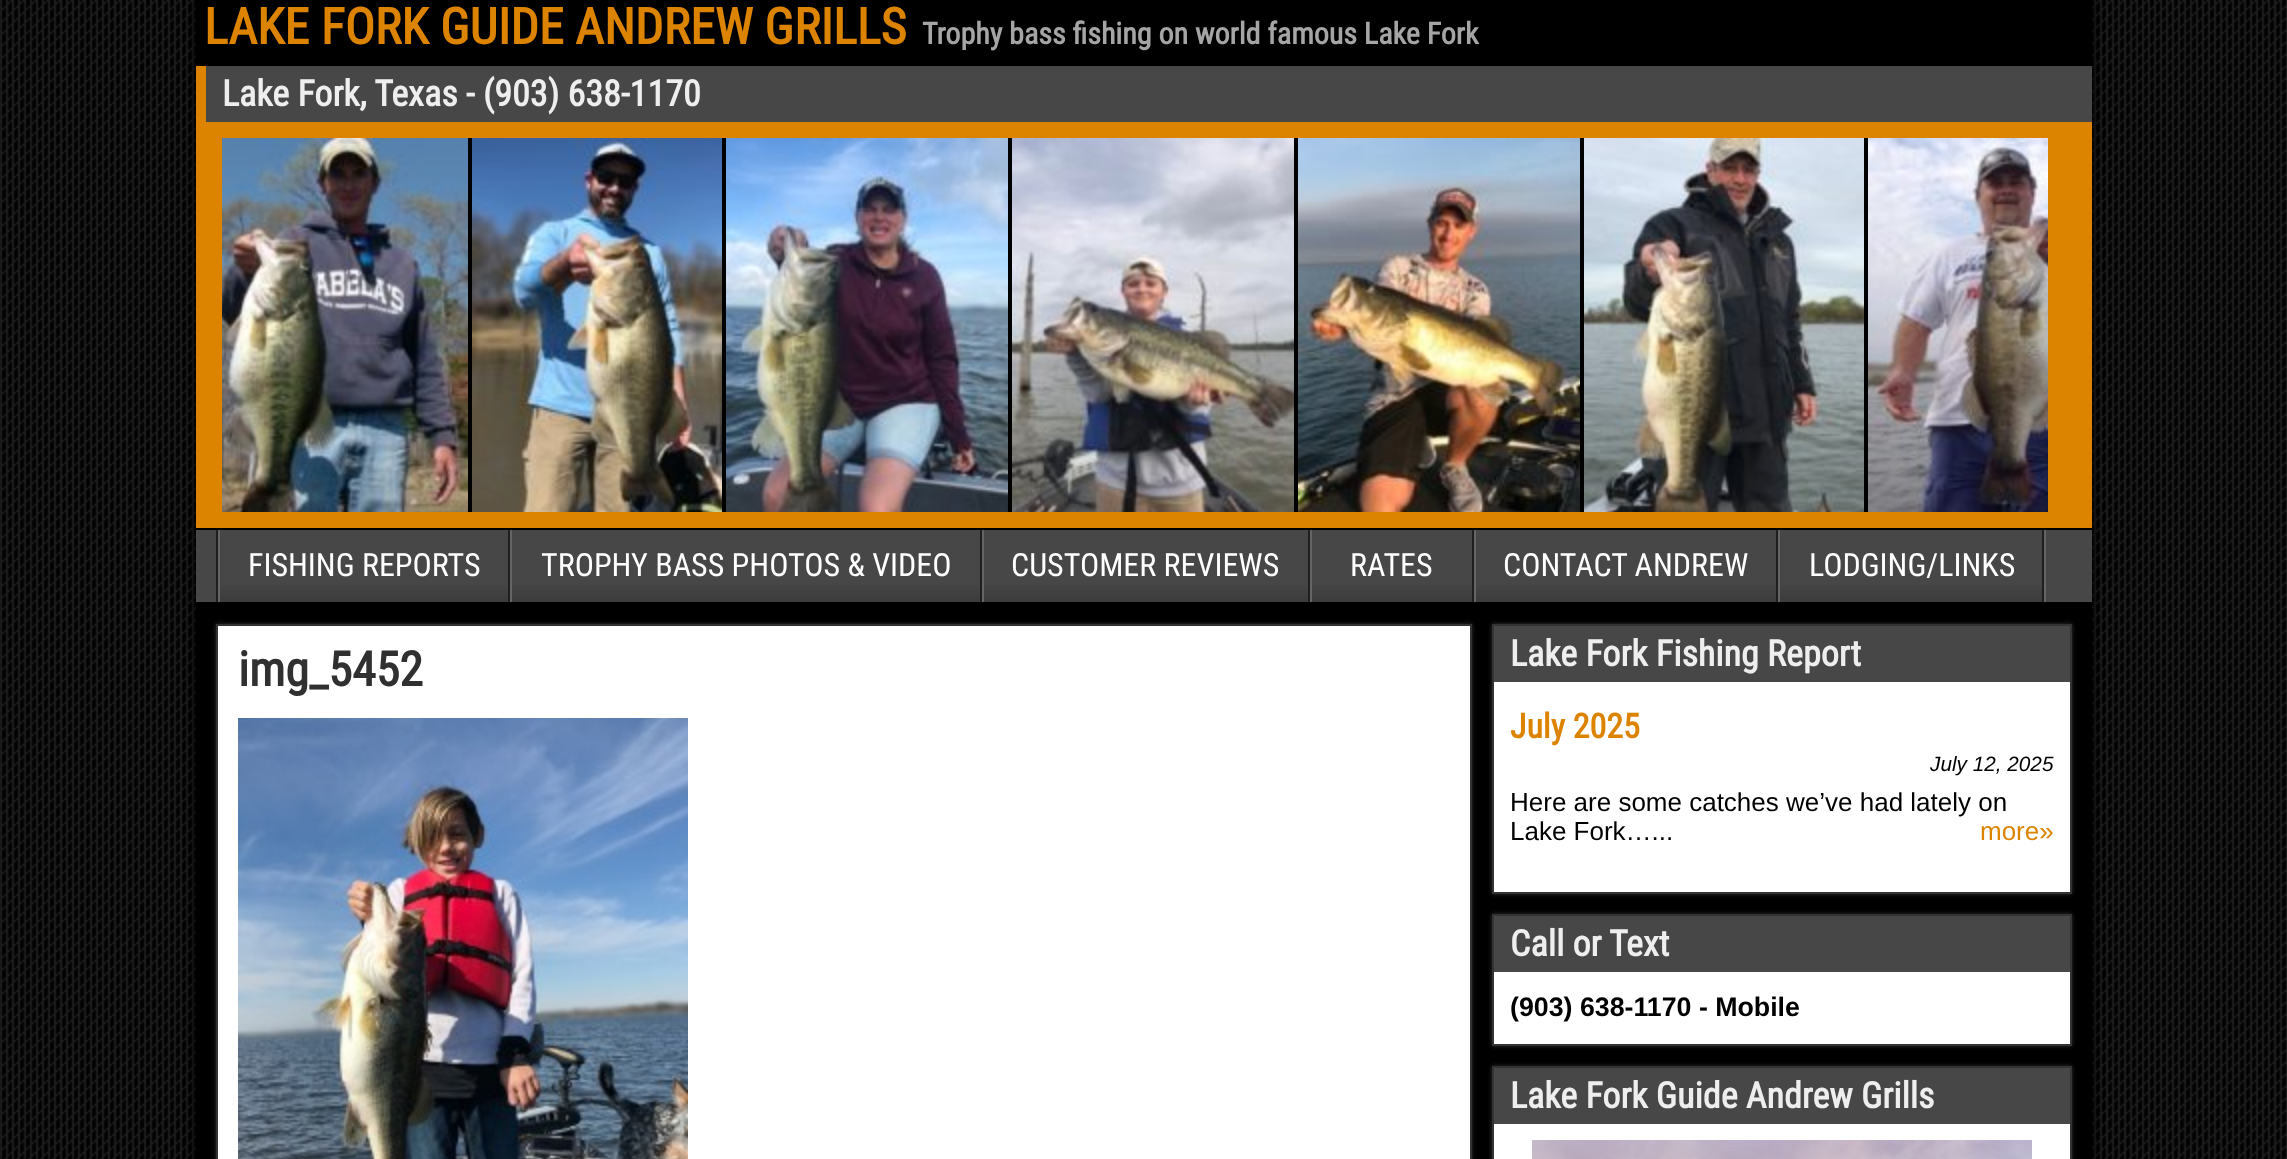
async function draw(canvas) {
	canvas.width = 2287;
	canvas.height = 1159;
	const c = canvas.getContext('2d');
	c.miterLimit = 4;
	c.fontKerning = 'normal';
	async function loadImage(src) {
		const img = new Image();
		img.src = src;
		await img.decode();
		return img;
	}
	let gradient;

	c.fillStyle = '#020202';
	c.fillRect(0, 0, 2287, 1159);
	c.drawImage(await loadImage('img1.png'), 0, 0, 2287, 1159);
	c.fillStyle = '#000';
	c.filter = 'blur(6px)';
	c.beginPath();
	c.rect(196, 0, 1896, 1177);
	c.fill();
	c.filter = 'none';
	c.fillRect(196, 0, 1896, 66);
	c.font = 'bold 50px Roboto Condensed';
	c.fillStyle = '#dc8300';
	c.fillText('LAKE FORK GUIDE ANDREW GRILLS', 204, 44);
	c.font = 'bold 30px Roboto Condensed';
	c.fillStyle = '#a5a5a5';
	c.fillText('Trophy bass fishing on world famous Lake Fork', 922, 44);
	for (const [x, y, w, h, color] of [
		[196, 66, 1896, 462, '#dc8300'],
		[196, 528, 1896, 2, '#000'],
		[206, 66, 1886, 56, '#474747'],
	]) {
		c.fillStyle = color;
		c.fillRect(x, y, w, h);
	}
	c.font = 'bold 36px Roboto Condensed';
	c.fillStyle = '#eee';
	c.fillText('Lake Fork, Texas - (903) 638-1170', 222, 106);
	c.fillStyle = '#000';
	c.fillRect(468, 138, 1400, 374);
	c.drawImage(await loadImage('img2.png'), 222, 138, 246, 374);
	c.drawImage(await loadImage('img3.png'), 472, 138, 250, 374);
	c.drawImage(await loadImage('img4.png'), 726, 138, 282, 374);
	c.drawImage(await loadImage('img5.png'), 1012, 138, 282, 374);
	c.drawImage(await loadImage('img6.png'), 1298, 138, 282, 374);
	c.drawImage(await loadImage('img7.png'), 1584, 138, 280, 374);
	c.drawImage(await loadImage('img8.png'), 1868, 138, 180, 374);
	for (const [x, y, w, h, color] of [
		[196, 530, 1896, 72, '#474747'],
		[196, 602, 1896, 557, '#000'],
		[2044, 530, 2, 72, '#656565'],
		[216, 530, 2, 72, '#1f1f1f'],
		[508, 530, 2, 72, '#1f1f1f'],
		[218, 530, 2, 72, '#656565'],
	]) {
		c.fillStyle = color;
		c.fillRect(x, y, w, h);
	}
	gradient = c.createLinearGradient(364, 530, 364, 602);
	gradient.addColorStop(0.7, '#474747');
	gradient.addColorStop(1, '#3c3c3c');
	c.fillStyle = gradient;
	c.fillRect(220, 585, 288, 17);
	c.font = '32px Roboto Condensed';
	c.fillStyle = '#fff';
	c.fillText('FISHING REPORTS', 248, 576);
	c.fillStyle = '#1f1f1f';
	c.fillRect(980, 530, 2, 72);
	c.fillStyle = '#656565';
	c.fillRect(510, 530, 2, 72);
	gradient = c.createLinearGradient(746, 530, 746, 602);
	gradient.addColorStop(0.7, '#474747');
	gradient.addColorStop(1, '#3c3c3c');
	c.fillStyle = gradient;
	c.fillRect(512, 585, 468, 17);
	c.fillStyle = '#fff';
	c.fillText('TROPHY BASS PHOTOS & VIDEO', 541, 576);
	c.fillStyle = '#1f1f1f';
	c.fillRect(1308, 530, 2, 72);
	c.fillStyle = '#656565';
	c.fillRect(982, 530, 2, 72);
	gradient = c.createLinearGradient(1146, 530, 1146, 602);
	gradient.addColorStop(0.7, '#474747');
	gradient.addColorStop(1, '#3c3c3c');
	c.fillStyle = gradient;
	c.fillRect(984, 585, 324, 17);
	c.fillStyle = '#fff';
	c.fillText('CUSTOMER REVIEWS', 1011, 576);
	c.fillStyle = '#1f1f1f';
	c.fillRect(1472, 530, 2, 72);
	c.fillStyle = '#656565';
	c.fillRect(1310, 530, 2, 72);
	gradient = c.createLinearGradient(1392, 530, 1392, 602);
	gradient.addColorStop(0.7, '#474747');
	gradient.addColorStop(1, '#3c3c3c');
	c.fillStyle = gradient;
	c.fillRect(1312, 585, 160, 17);
	c.fillStyle = '#fff';
	c.fillText('RATES', 1350, 576);
	c.fillStyle = '#1f1f1f';
	c.fillRect(1776, 530, 2, 72);
	c.fillStyle = '#656565';
	c.fillRect(1474, 530, 2, 72);
	gradient = c.createLinearGradient(1626, 530, 1626, 602);
	gradient.addColorStop(0.7, '#474747');
	gradient.addColorStop(1, '#3c3c3c');
	c.fillStyle = gradient;
	c.fillRect(1476, 585, 300, 17);
	c.fillStyle = '#fff';
	c.fillText('CONTACT ANDREW', 1503, 576);
	c.fillStyle = '#1f1f1f';
	c.fillRect(2042, 530, 2, 72);
	c.fillStyle = '#656565';
	c.fillRect(1778, 530, 2, 72);
	gradient = c.createLinearGradient(1911, 530, 1911, 602);
	gradient.addColorStop(0.7, '#474747');
	gradient.addColorStop(1, '#3c3c3c');
	c.fillStyle = gradient;
	c.fillRect(1780, 585, 262, 17);
	c.fillStyle = '#fff';
	c.fillText('LODGING/LINKS', 1809, 576);
	c.fillStyle = '#333';
	c.filter = 'blur(2px)';
	c.beginPath();
	c.rect(216, 624, 1256, 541);
	c.fill();
	c.filter = 'none';
	c.fillStyle = '#fff';
	c.beginPath();
	c.rect(217, 625, 1254, 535);
	c.fill();
	c.strokeStyle = '#333';
	c.lineWidth = 2;
	c.stroke();
	c.font = 'bold 48px Roboto Condensed';
	c.fillStyle = '#303030';
	c.fillText('img_5452', 238, 686);
	c.drawImage(await loadImage('img9.png'), 238, 718, 450, 441);
	c.fillStyle = '#333';
	c.filter = 'blur(2px)';
	c.beginPath();
	c.rect(1492, 624, 580, 270);
	c.fill();
	c.filter = 'none';
	c.fillStyle = '#fff';
	c.fillRect(1494, 682, 576, 210);
	c.strokeRect(1493, 625, 578, 268);
	c.fillStyle = '#474747';
	c.fillRect(1494, 626, 576, 56);
	c.font = 'bold 36px Roboto Condensed';
	c.fillStyle = '#eee';
	c.fillText('Lake Fork Fishing Report', 1510, 666);
	c.font = 'bold 34px Roboto Condensed';
	c.fillStyle = '#dc8300';
	c.fillText('July 2025', 1510, 738);
	c.font = 'italic 20.75px Liberation Sans';
	c.fillStyle = '#000';
	c.fillText('July 12, 2025', 1930, 771);
	c.font = '26px Liberation Sans';
	c.fillText('Here are some catches we’ve had lately on', 1510, 811);
	c.fillText('Lake Fork…...', 1510, 840);
	c.fillStyle = '#dc8300';
	c.fillText('more»', 1980, 840);
	c.fillStyle = '#333';
	c.filter = 'blur(2px)';
	c.beginPath();
	c.rect(1492, 914, 580, 132);
	c.fill();
	c.filter = 'none';
	c.fillStyle = '#fff';
	c.fillRect(1494, 972, 576, 72);
	c.strokeRect(1493, 915, 578, 130);
	c.fillStyle = '#474747';
	c.fillRect(1494, 916, 576, 56);
	c.font = 'bold 36px Roboto Condensed';
	c.fillStyle = '#eee';
	c.fillText('Call or Text', 1510, 956);
	c.font = 'bold 26.75px Liberation Sans';
	c.fillStyle = '#000';
	c.fillText('(903) 638-1170 - Mobile', 1510, 1016);
	c.fillStyle = '#333';
	c.filter = 'blur(2px)';
	c.beginPath();
	c.rect(1492, 1066, 580, 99);
	c.fill();
	c.filter = 'none';
	c.fillStyle = '#fff';
	c.fillRect(1494, 1124, 576, 35);
	c.strokeRect(1493, 1067, 578, 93);
	c.fillStyle = '#474747';
	c.fillRect(1494, 1068, 576, 56);
	c.font = 'bold 36px Roboto Condensed';
	c.fillStyle = '#eee';
	c.fillText('Lake Fork Guide Andrew Grills', 1510, 1108);
	c.drawImage(await loadImage('img10.png'), 1532, 1140, 500, 19);
}

draw(document.querySelector('canvas'));
